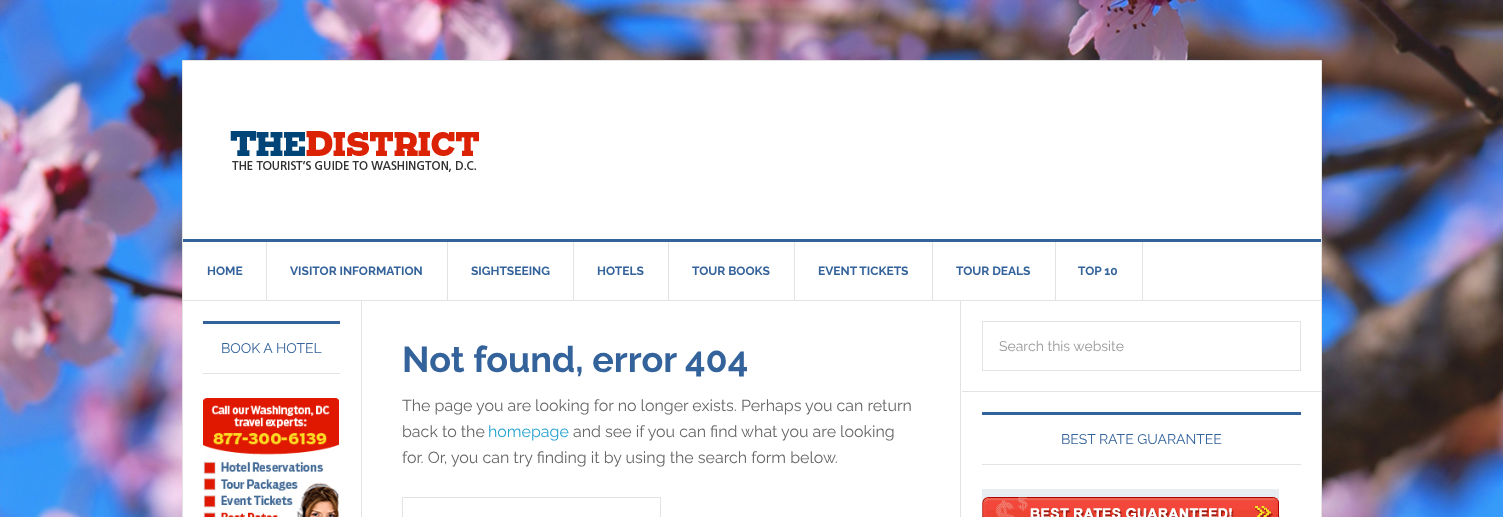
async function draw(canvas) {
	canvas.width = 1503;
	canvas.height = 517;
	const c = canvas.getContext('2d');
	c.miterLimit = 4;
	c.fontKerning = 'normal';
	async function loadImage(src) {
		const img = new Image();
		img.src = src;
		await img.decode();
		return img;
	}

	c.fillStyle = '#fff';
	c.fillRect(0, 0, 1503, 517);
	c.drawImage(await loadImage('img1.png'), 0, 0, 1503, 517);
	c.beginPath();
	c.rect(182.5, 60.5, 1139, 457);
	c.fill();
	c.strokeStyle = '#e3e3e3';
	c.stroke();
	c.fillStyle = '#34639b';
	c.fillRect(183, 239, 1138, 3);
	c.drawImage(await loadImage('img2.png'), 230, 131, 249, 41);
	c.fillStyle = '#e3e3e3';
	c.fillRect(183, 300, 1138, 1);
	c.fillRect(266, 242, 1, 58);
	c.font = 'bold 12px Raleway';
	c.fillStyle = '#34639b';
	c.fillText('HOME', 207, 275);
	c.fillStyle = '#e3e3e3';
	c.fillRect(447, 242, 1, 58);
	c.fillStyle = '#34639b';
	c.fillText('VISITOR INFORMATION', 290, 275);
	c.fillStyle = '#e3e3e3';
	c.fillRect(573, 242, 1, 58);
	c.fillStyle = '#34639b';
	c.fillText('SIGHTSEEING', 471, 275);
	c.fillStyle = '#e3e3e3';
	c.fillRect(668, 242, 1, 58);
	c.fillStyle = '#34639b';
	c.fillText('HOTELS', 597, 275);
	c.fillStyle = '#e3e3e3';
	c.fillRect(794, 242, 1, 58);
	c.fillStyle = '#34639b';
	c.fillText('TOUR BOOKS', 692, 275);
	c.fillStyle = '#e3e3e3';
	c.fillRect(932, 242, 1, 58);
	c.fillStyle = '#34639b';
	c.fillText('EVENT TICKETS', 818, 275);
	c.fillStyle = '#e3e3e3';
	c.fillRect(1055, 242, 1, 58);
	c.fillStyle = '#34639b';
	c.fillText('TOUR DEALS', 956, 275);
	c.fillStyle = '#e3e3e3';
	c.fillRect(1142, 242, 1, 58);
	c.fillStyle = '#34639b';
	c.fillText('TOP 10', 1078, 275);
	c.fillRect(203, 321, 137, 3);
	c.fillStyle = '#e3e3e3';
	c.fillRect(203, 373, 137, 1);
	c.font = '14px Raleway';
	c.fillStyle = '#34639b';
	c.fillText('BOOK A HOTEL', 221, 353);
	c.drawImage(await loadImage('img3.png'), 203, 398, 136, 119);
	c.fillStyle = '#e3e3e3';
	c.fillRect(960, 301, 1, 216);
	c.fillRect(361, 301, 1, 216);
	c.font = 'bold 36px Raleway';
	c.fillStyle = '#34639b';
	c.fillText('Not found, error 404', 402, 372);
	c.font = '16px Raleway';
	c.fillStyle = '#666';
	c.fillText('The page you are looking for no longer exists. Perhaps you can return', 402, 411);
	c.fillText('back to the', 402, 437);
	c.fillStyle = '#27a3d1';
	c.fillText('homepage', 488, 437);
	c.fillStyle = '#666';
	c.fillText('and see if you can find what you are looking', 573, 437);
	c.fillText('for. Or, you can try finding it by using the search form below.', 402, 463);
	c.strokeRect(402.5, 497.5, 258, 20);
	c.fillStyle = '#e3e3e3';
	c.fillRect(962, 391, 359, 1);
	c.strokeRect(982.5, 321.5, 318, 49);
	c.font = '14px Raleway';
	c.fillStyle = '#999';
	c.fillText('Search this website', 999, 351);
	c.fillStyle = '#34639b';
	c.fillRect(982, 412, 319, 3);
	c.fillStyle = '#e3e3e3';
	c.fillRect(982, 464, 319, 1);
	c.fillStyle = '#34639b';
	c.fillText('BEST RATE GUARANTEE', 1061, 444);
	c.drawImage(await loadImage('img4.png'), 982, 489, 297, 28);
}

draw(document.querySelector('canvas'));
